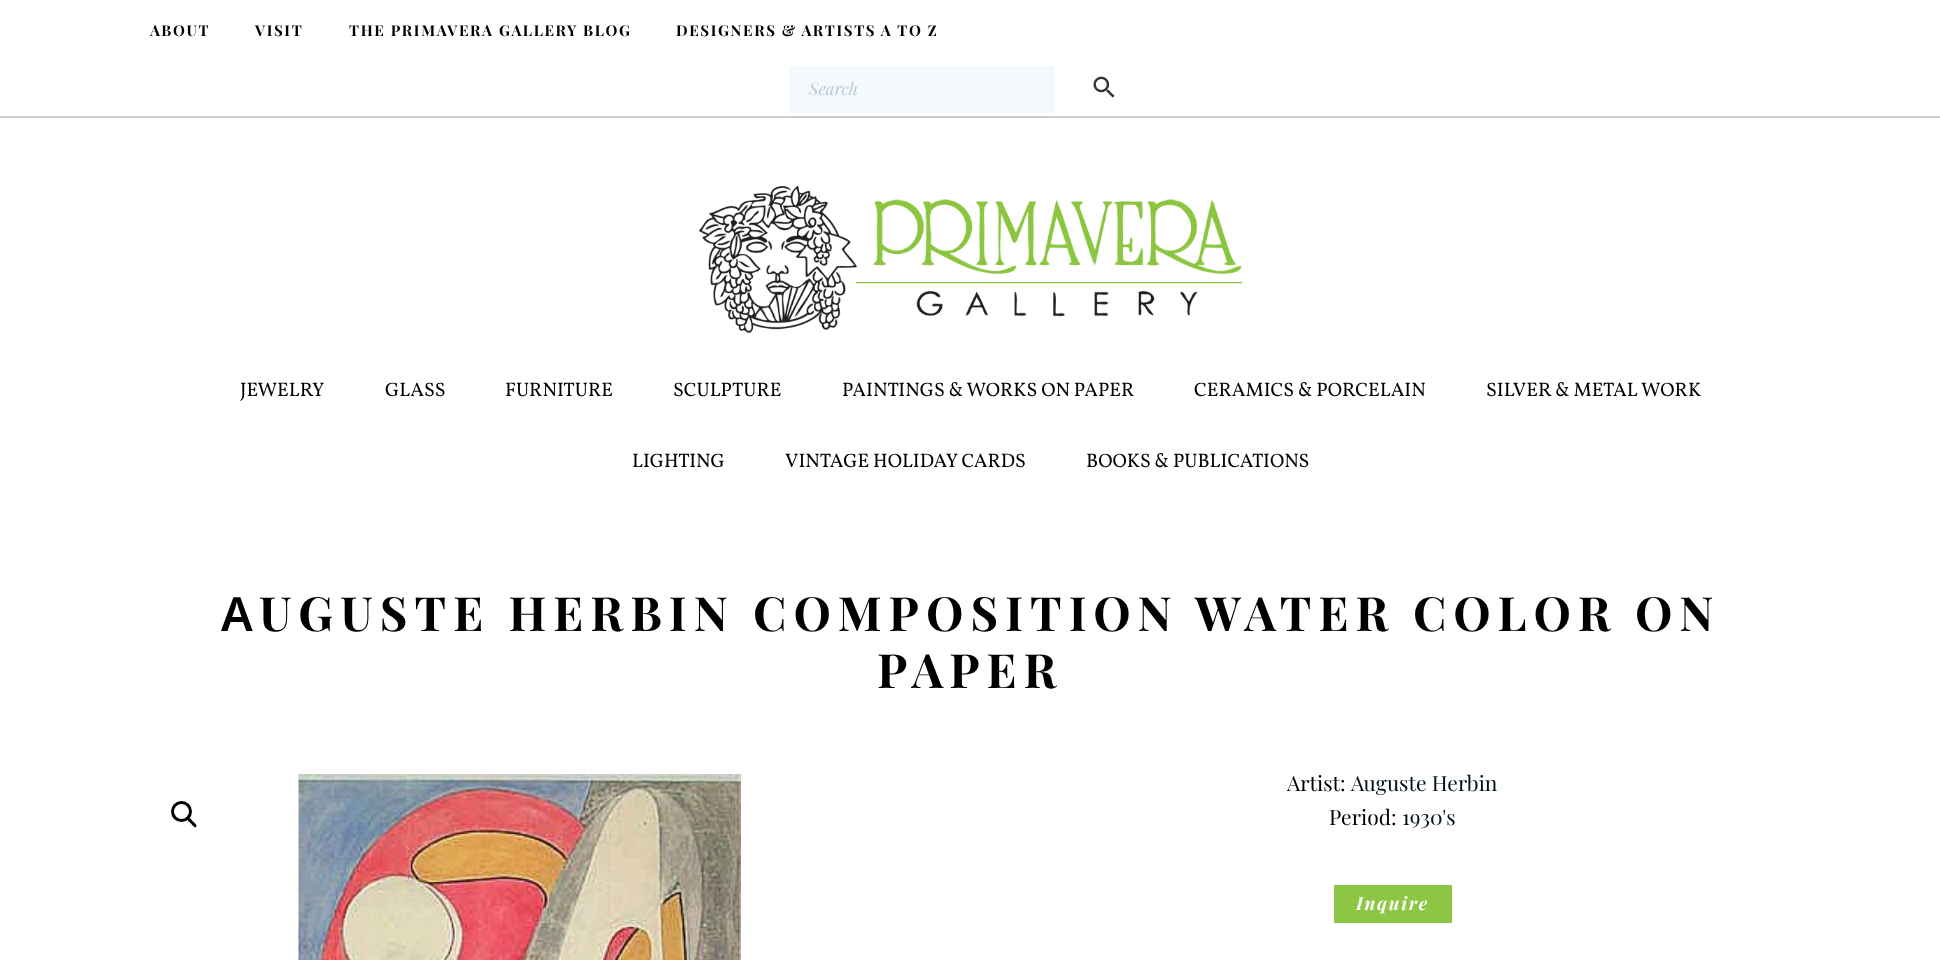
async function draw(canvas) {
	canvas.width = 1940;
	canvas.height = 960;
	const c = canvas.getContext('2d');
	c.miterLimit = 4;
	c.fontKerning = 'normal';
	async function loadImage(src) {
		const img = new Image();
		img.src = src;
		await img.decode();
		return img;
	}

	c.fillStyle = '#fff';
	c.fillRect(0, 0, 1940, 960);
	c.fillStyle = '#c9ced3';
	c.fillRect(0, 116, 1940, 2);
	c.letterSpacing = '1.65px';
	c.font = 'bold 15px Playfair Display';
	c.fillStyle = '#000';
	for (const [text, x, y] of [
		['ABOUT', 150, 36],
		['VISIT', 255, 36],
		['THE PRIMAVERA GALLERY BLOG', 349, 36],
		['DESIGNERS & ARTISTS A TO Z', 676, 36],
	]) {
		c.fillText(text, x, y);
	}
	c.fillStyle = '#f4f9fc';
	c.fillRect(789, 66, 266, 47);
	c.letterSpacing = '0px';
	c.font = 'italic 17px Playfair Display';
	c.fillStyle = '#b6cad9';
	c.fillText('Search', 809, 95);
	c.drawImage(await loadImage('img1.png'), 1093, 76, 22, 22);
	c.drawImage(await loadImage('img2.png'), 699, 186, 543, 147);
	c.font = '19.5px Vollkorn';
	c.fillStyle = '#000';
	for (const [text, x, y] of [
		['JEWELRY', 240, 396],
		['GLASS', 385, 396],
		['FURNITURE', 505, 396],
		['SCULPTURE', 673, 396],
		['PAINTINGS & WORKS ON PAPER', 842, 396],
		['CERAMICS & PORCELAIN', 1194, 396],
		['SILVER & METAL WORK', 1486, 396],
		['LIGHTING', 632, 467],
		['VINTAGE HOLIDAY CARDS', 785, 467],
		['BOOKS & PUBLICATIONS', 1086, 467],
	]) {
		c.fillText(text, x, y);
	}
	c.letterSpacing = '7.1px';
	c.font = '600 47.25px Noto Sans';
	c.fillText('A', 221, 631);
	c.font = 'bold 47.25px Playfair Display';
	c.fillText('UGUSTE HERBIN COMPOSITION WATER COLOR ON', 259, 631);
	c.fillText('PAPER', 877, 688);
	c.beginPath();
	c.arc(181.5, 811.5, 9, 0, 2 * Math.PI);
	c.strokeStyle = '#000';
	c.lineWidth = 3;
	c.stroke();
	c.beginPath();
	c.moveTo(188, 818.5);
	c.bezierCurveTo(189.5, 816.5, 192, 820.5, 193, 821.5);
	c.bezierCurveTo(194, 822.5, 198, 825, 196, 827);
	c.bezierCurveTo(194.5, 828.5, 192, 824.5, 191, 823.5);
	c.bezierCurveTo(190, 822.5, 186, 820, 188, 818.5);
	c.closePath();
	c.fill();
	c.drawImage(await loadImage('img3.png'), 298, 774, 443, 186);
	c.letterSpacing = '0px';
	c.font = '21px Playfair Display';
	c.fillText('Artist:', 1287, 791);
	c.fillStyle = '#00111a';
	c.fillText('Auguste Herbin', 1351, 791);
	c.fillStyle = '#000';
	c.fillText('Period:', 1329, 825);
	c.fillStyle = '#00111a';
	c.fillText('1930\'s', 1402, 825);
	c.fillStyle = '#8cc642';
	c.fillRect(1334, 885, 118, 38);
	c.letterSpacing = '1.75px';
	c.font = 'italic bold 18px Playfair Display';
	c.fillStyle = '#fff';
	c.fillText('Inquire', 1356, 910);
}

draw(document.querySelector('canvas'));
